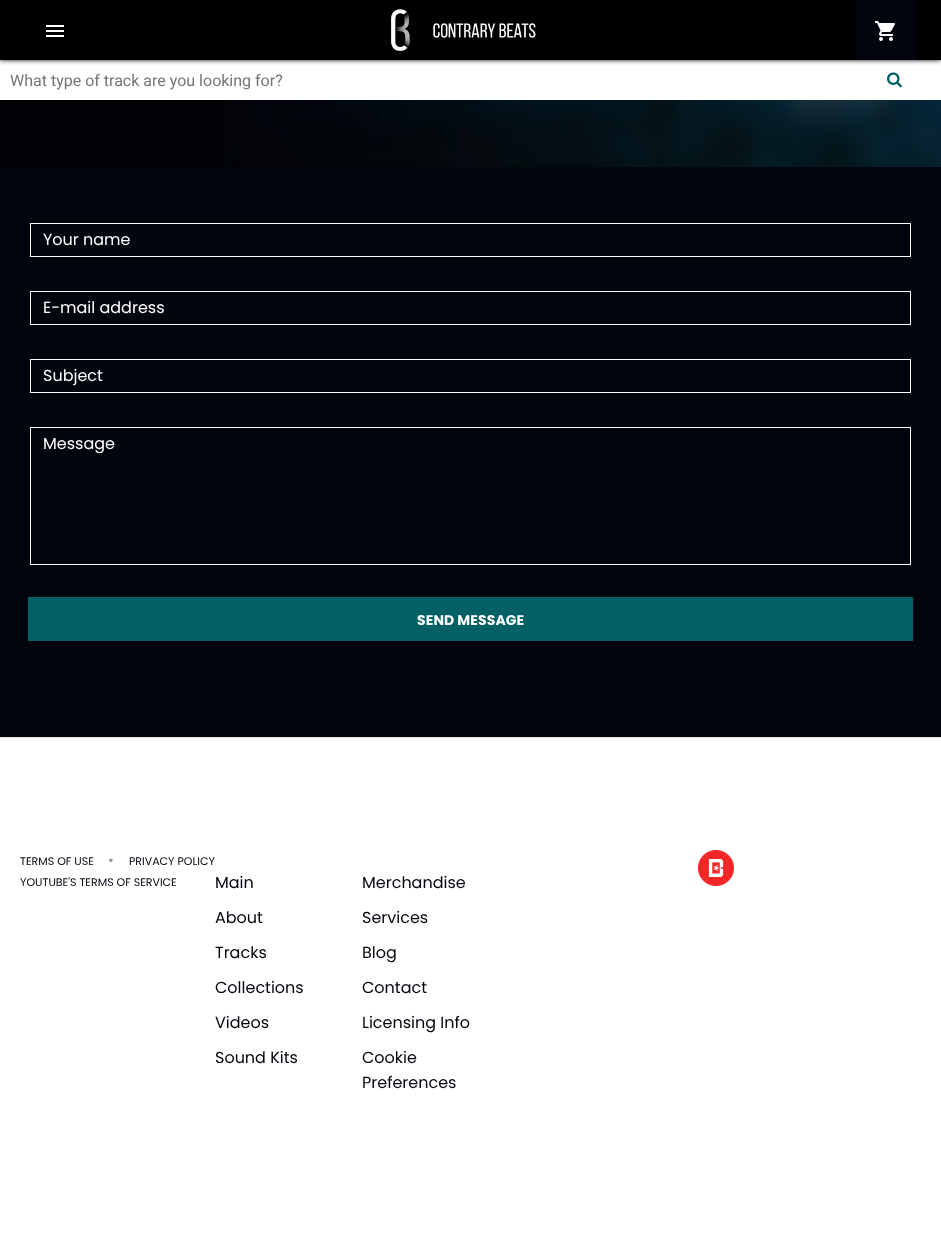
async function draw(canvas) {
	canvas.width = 941;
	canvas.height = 1240;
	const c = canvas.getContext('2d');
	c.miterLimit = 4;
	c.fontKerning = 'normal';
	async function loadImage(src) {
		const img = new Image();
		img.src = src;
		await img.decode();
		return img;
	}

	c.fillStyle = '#fff';
	c.fillRect(0, 0, 941, 1240);
	c.fillStyle = '#000';
	c.filter = 'blur(2.5px)';
	c.beginPath();
	c.rect(0, 0, 941, 60);
	c.fill();
	c.filter = 'none';
	c.fillRect(0, 0, 941, 60);
	c.drawImage(await loadImage('img1.png'), 46, 25, 18, 12);
	c.drawImage(await loadImage('img2.png'), 390, 9, 146, 42);
	c.fillStyle = '#02050e';
	c.fillRect(856, 0, 60, 60);
	c.drawImage(await loadImage('img3.png'), 875, 21, 20, 20);
	c.font = '16px Roboto';
	c.fillStyle = '#757575';
	c.fillText('What type of track are you looking for?', 10, 86);
	c.drawImage(await loadImage('img4.png'), 887, 72, 15, 16);
	c.fillStyle = '#010307';
	c.fillRect(0, 100, 224, 67);
	c.drawImage(await loadImage('img5.png'), 224, 100, 717, 67);
	c.fillStyle = '#02050e';
	c.fillRect(0, 167, 941, 570);
	c.strokeStyle = '#fff';
	c.strokeRect(30.5, 223.5, 880, 33);
	c.font = '16px Poppins';
	c.fillStyle = '#fff';
	c.fillText('Your name', 43, 245);
	c.strokeRect(30.5, 291.5, 880, 33);
	c.fillText('E-mail address', 43, 313);
	c.strokeRect(30.5, 359.5, 880, 33);
	c.fillText('Subject', 43, 381);
	c.strokeRect(30.5, 427.5, 880, 137);
	c.save();
	c.beginPath();
	c.rect(28, 427, 893, 26);
	c.clip();
	c.fillText('Message', 43, 449);
	c.restore();
	c.fillStyle = '#006064';
	c.fillRect(28, 597, 885, 44);
	c.letterSpacing = '0.1px';
	c.font = 'bold 14px Poppins';
	c.fillStyle = '#fff';
	c.fillText('SEND MESSAGE', 417, 625);
	c.fillStyle = '#e0e0e0';
	c.fillRect(0, 737, 941, 1);
	c.letterSpacing = '0px';
	c.font = '11px Poppins';
	c.fillStyle = '#02050e';
	c.fillText('TERMS OF USE', 20, 865);
	c.font = '14px Poppins';
	c.fillStyle = '#999';
	c.fillText('•', 108, 865);
	c.font = '11px Poppins';
	c.fillStyle = '#02050e';
	c.fillText('PRIVACY POLICY', 129, 865);
	c.fillText('YOUTUBE\'S TERMS OF SERVICE', 20, 886);
	c.drawImage(await loadImage('img6.png'), 698, 850, 36, 36);
	c.font = '16px Poppins';
	for (const [text, x, y] of [
		['Main', 215, 888],
		['About', 215, 923],
		['Tracks', 215, 958],
		['Collections', 215, 993],
		['Videos', 215, 1028],
		['Sound Kits', 215, 1063],
		['Merchandise', 362, 888],
		['Services', 362, 923],
		['Blog', 362, 958],
		['Contact', 362, 993],
		['Licensing Info', 362, 1028],
		['Cookie', 362, 1063],
		['Preferences', 362, 1088],
	]) {
		c.fillText(text, x, y);
	}
}

draw(document.querySelector('canvas'));
